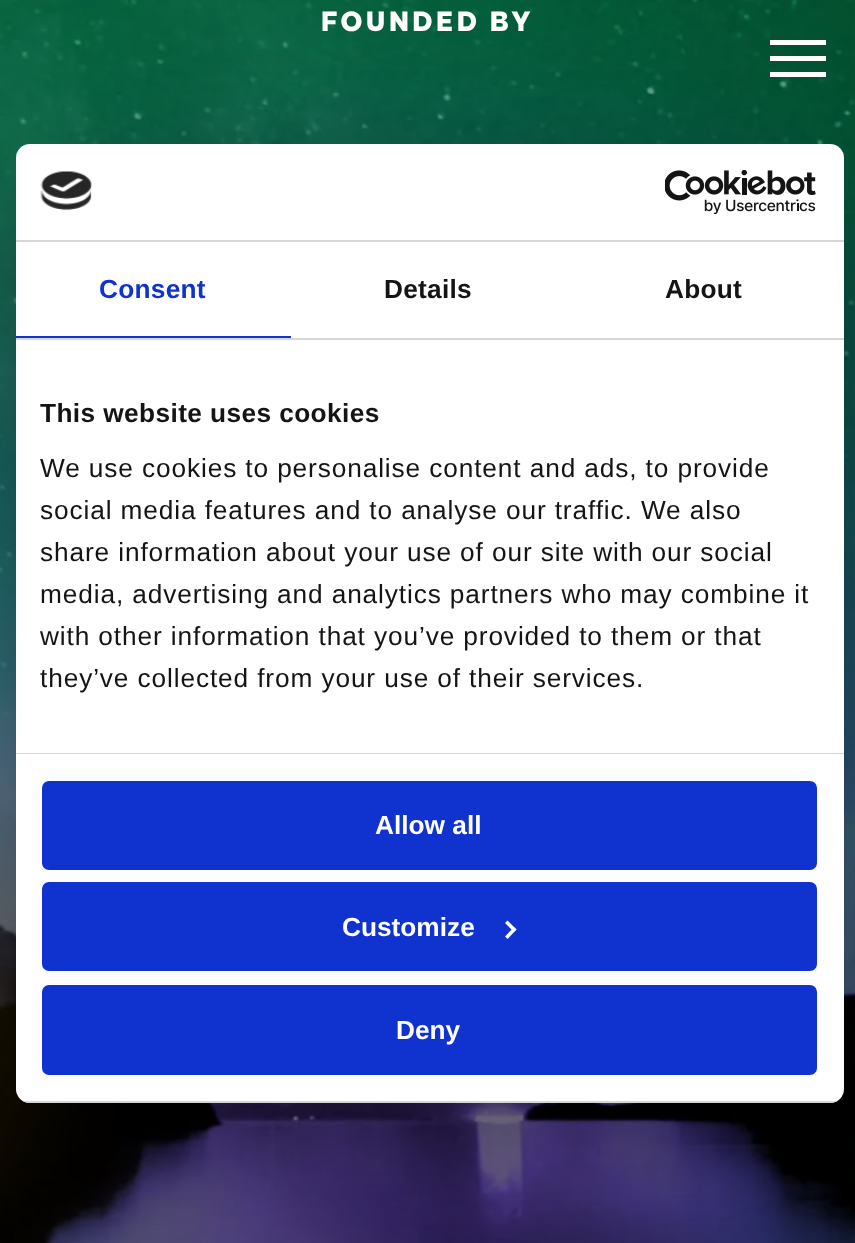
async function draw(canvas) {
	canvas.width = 855;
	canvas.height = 1243;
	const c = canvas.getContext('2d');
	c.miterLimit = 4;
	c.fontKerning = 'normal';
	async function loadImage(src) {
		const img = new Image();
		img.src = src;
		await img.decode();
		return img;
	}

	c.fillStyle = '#fff';
	c.fillRect(0, 0, 855, 1243);
	c.drawImage(await loadImage('img2.png'), 854, 0, 1, 1243);
	c.drawImage(await loadImage('img1.png'), 0, 0, 855, 1243);
	c.letterSpacing = '3.5px';
	c.font = '900 26.25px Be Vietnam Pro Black';
	c.fillText('FOUNDED BY', 321, 31);
	for (const [x, y, w, h, color] of [
		[770, 56, 56, 5, '#fff'],
		[770, 40, 56, 5, '#fff'],
		[770, 72, 56, 5, '#fff'],
	]) {
		c.fillStyle = color;
		c.fillRect(x, y, w, h);
	}
	c.fillStyle = '#0000004d';
	c.filter = 'blur(59.5px)';
	c.beginPath();
	c.roundRect(16, 200, 828, 959, 14);
	c.fill();
	c.filter = 'none';
	c.fillStyle = '#fff';
	c.beginPath();
	c.roundRect(16, 144, 828, 959, 14);
	c.fill();
	c.fillStyle = '#d6d6d6';
	c.fillRect(16, 240, 828, 2);
	c.drawImage(await loadImage('img3.png'), 40, 171, 53, 40);
	c.drawImage(await loadImage('img4.png'), 665, 170, 151, 44);
	c.fillRect(16, 338, 828, 2);
	c.fillStyle = '#1032cf';
	c.fillRect(16, 336, 275, 2);
	c.letterSpacing = '0.25px';
	c.font = 'bold 26.25px Liberation Sans';
	c.fillText('Consent', 99, 298);
	c.fillStyle = '#141414';
	c.fillText('Details', 384, 298);
	c.fillText('About', 665, 298);
	c.fillStyle = '#d6d6d6';
	c.fillRect(16, 753, 828, 1);
	c.letterSpacing = '0.4px';
	c.fillStyle = '#141414';
	c.fillText('This website uses cookies', 40, 422);
	c.letterSpacing = '0.88px';
	c.font = '26.25px Liberation Sans';
	for (const [text, x, y] of [
		['We use cookies to personalise content and ads, to provide', 40, 477],
		['social media features and to analyse our traffic. We also', 40, 519],
		['share information about your use of our site with our social', 40, 561],
		['media, advertising and analytics partners who may combine it', 40, 603],
		['with other information that you’ve provided to them or that', 40, 645],
		['they’ve collected from your use of their services.', 40, 687],
	]) {
		c.fillText(text, x, y);
	}
	c.save();
	c.beginPath();
	c.roundRect(16, 144, 828, 959, 14);
	c.clip();
	c.fillStyle = '#d6d6d6';
	c.fillRect(16, 1101, 828, 2);
	c.restore();
	c.fillStyle = '#1032cf';
	c.beginPath();
	c.roundRect(44, 783, 771, 85, 5);
	c.fill();
	c.strokeStyle = '#1032cf';
	c.lineWidth = 4;
	c.stroke();
	c.letterSpacing = '0px';
	c.font = 'bold 26.25px Liberation Sans';
	c.fillStyle = '#fff';
	c.fillText('Allow all', 375, 834);
	c.fillStyle = '#1032cf';
	c.beginPath();
	c.roundRect(44, 884, 771, 85, 5);
	c.fill();
	c.stroke();
	c.fillStyle = '#fff';
	c.fillText('Customize', 342, 936);
	c.beginPath();
	c.moveTo(507.5, 920.5);
	c.lineTo(516.5, 929.5);
	c.lineTo(514, 932);
	c.lineTo(505, 923);
	c.closePath();
	c.fill();
	c.beginPath();
	c.moveTo(514, 927);
	c.lineTo(516.5, 929.5);
	c.lineTo(507.5, 939);
	c.lineTo(505, 936.5);
	c.closePath();
	c.fill();
	c.fillStyle = '#1032cf';
	c.beginPath();
	c.roundRect(44, 987, 771, 86, 5);
	c.fill();
	c.stroke();
	c.fillStyle = '#fff';
	c.fillText('Deny', 396, 1039);
}

draw(document.querySelector('canvas'));
